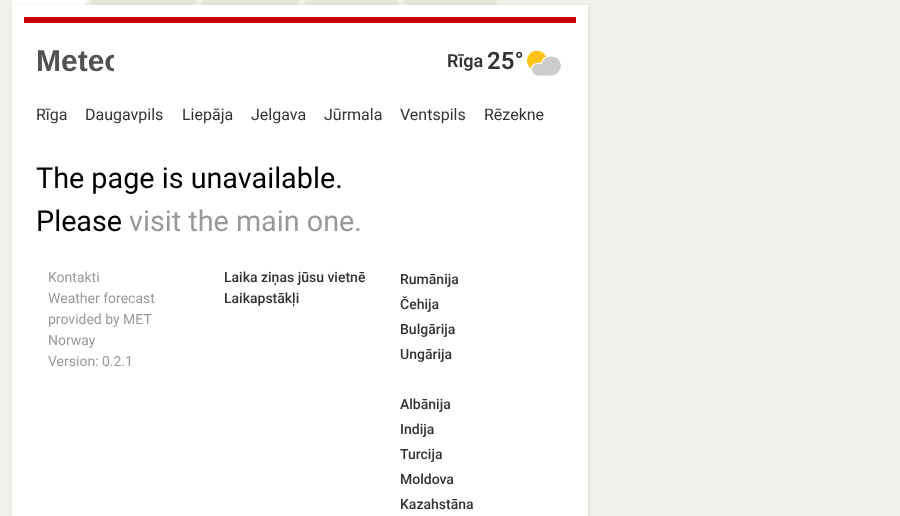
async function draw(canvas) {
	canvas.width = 900;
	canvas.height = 516;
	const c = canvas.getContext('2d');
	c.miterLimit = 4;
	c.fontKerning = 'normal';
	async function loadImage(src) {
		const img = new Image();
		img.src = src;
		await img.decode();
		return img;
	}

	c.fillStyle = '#f2f0ea';
	c.fillRect(0, 0, 900, 516);
	for (const [x, y, w, h, color] of [
		[12, 0, 73, 5, '#fff'],
		[91, 0, 105, 5, '#e8e5da'],
		[202, 0, 97, 5, '#e8e5da'],
		[305, 0, 93, 5, '#e8e5da'],
		[404, 0, 93, 5, '#e8e5da'],
	]) {
		c.fillStyle = color;
		c.fillRect(x, y, w, h);
	}
	c.fillStyle = '#0000001a';
	c.filter = 'blur(2px)';
	c.beginPath();
	c.rect(13, 6, 576, 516);
	c.fill();
	c.filter = 'none';
	c.fillStyle = '#fff';
	c.fillRect(12, 5, 576, 511);
	c.fillStyle = '#ca0000';
	c.fillRect(24, 17, 552, 6);
	c.save();
	c.beginPath();
	c.rect(36, 43, 78, 35);
	c.clip();
	c.font = 'bold 30px Liberation Sans';
	c.fillStyle = '#525252';
	c.fillText('Meteo', 36, 71);
	c.restore();
	c.font = '600 18px Roboto';
	c.fillStyle = '#333';
	c.fillText('Rīga', 447, 67);
	c.font = '600 24px Roboto';
	c.fillText('25°', 487, 69);
	c.drawImage(await loadImage('img1.png'), 526, 50, 35, 26);
	c.font = '16px Roboto';
	for (const [text, x, y] of [
		['Rīga', 36, 120],
		['Daugavpils', 85, 120],
		['Liepāja', 182, 120],
		['Jelgava', 251, 120],
		['Jūrmala', 324, 120],
		['Ventspils', 400, 120],
		['Rēzekne', 484, 120],
	]) {
		c.fillText(text, x, y);
	}
	c.font = '28.75px Roboto';
	c.fillStyle = '#000';
	c.fillText('The page is unavailable.', 36, 188);
	c.fillText('Please', 36, 231);
	c.fillStyle = '#999';
	c.fillText('visit the main one.', 129, 231);
	c.font = '14px Roboto';
	for (const [text, x, y] of [
		['Kontakti', 48, 282],
		['Weather forecast', 48, 303],
		['provided by MET', 48, 324],
		['Norway', 48, 345],
		['Version: 0.2.1', 48, 366],
	]) {
		c.fillText(text, x, y);
	}
	c.font = '500 14px Roboto';
	c.fillStyle = '#333';
	for (const [text, x, y] of [
		['Laika ziņas jūsu vietnē', 224, 282],
		['Laikapstākļi', 224, 303],
		['Rumānija', 400, 284],
		['Čehija', 400, 309],
		['Bulgārija', 400, 334],
		['Ungārija', 400, 359],
		['Albānija', 400, 409],
		['Indija', 400, 434],
		['Turcija', 400, 459],
		['Moldova', 400, 484],
		['Kazahstāna', 400, 509],
	]) {
		c.fillText(text, x, y);
	}
}

draw(document.querySelector('canvas'));
